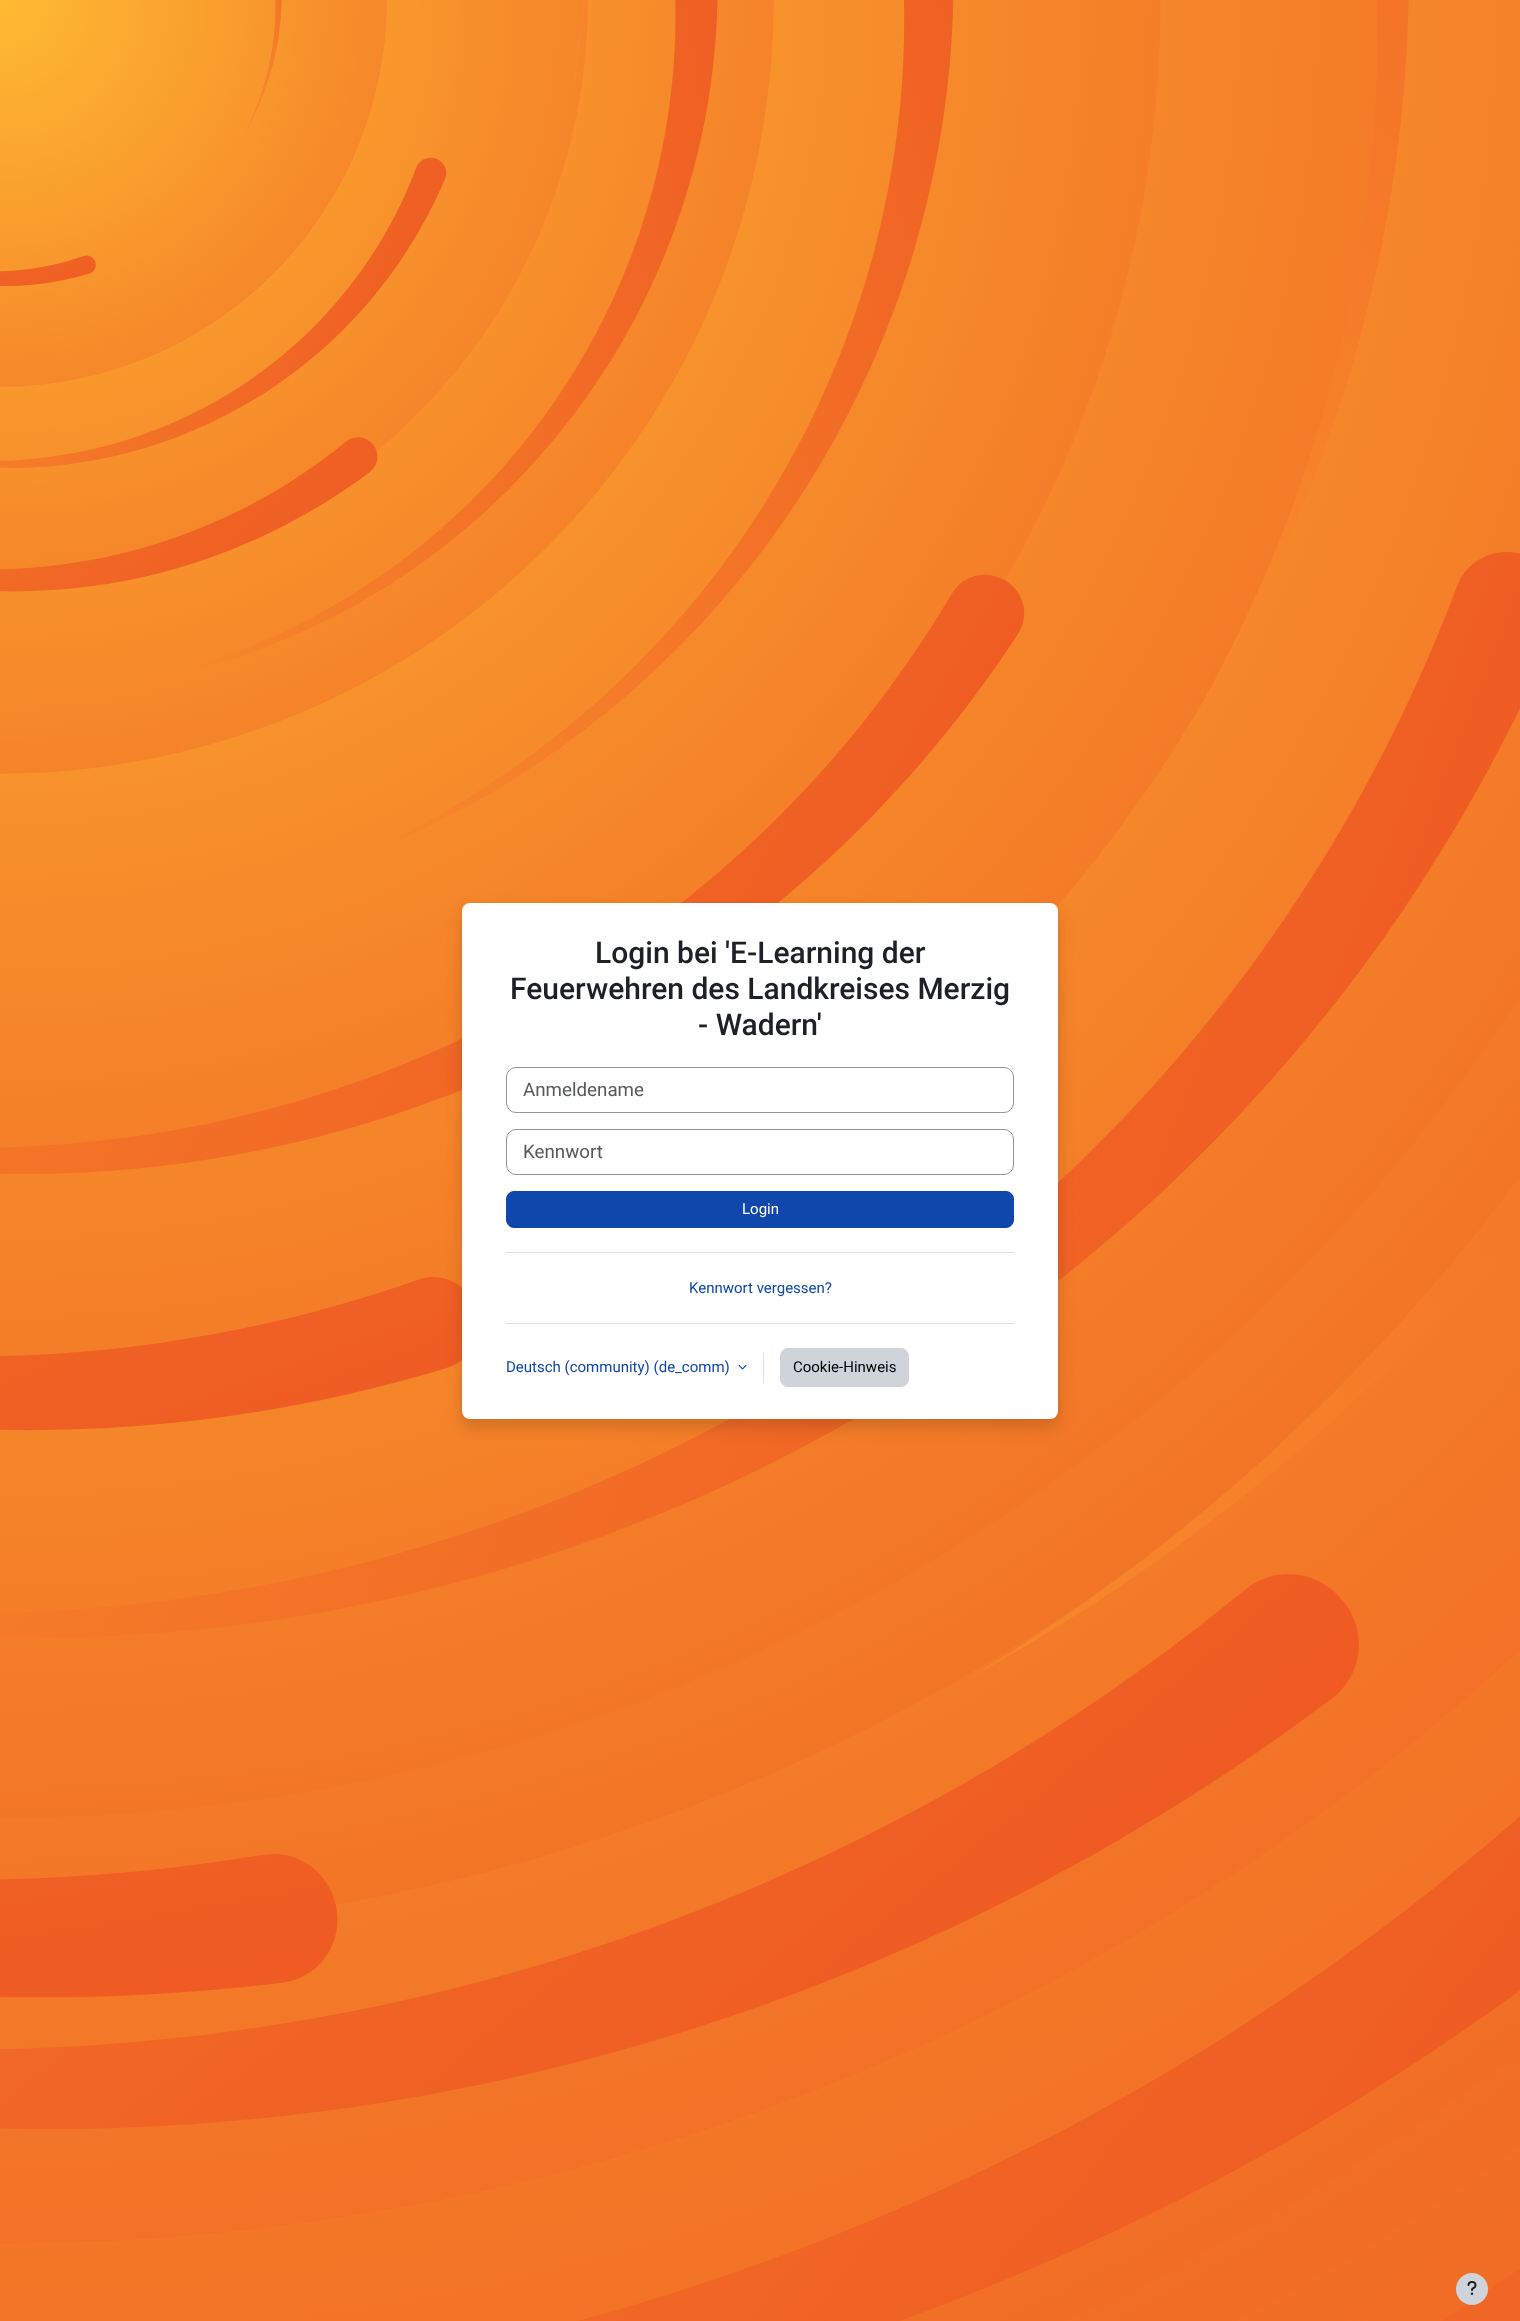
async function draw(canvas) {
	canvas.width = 1520;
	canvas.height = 2321;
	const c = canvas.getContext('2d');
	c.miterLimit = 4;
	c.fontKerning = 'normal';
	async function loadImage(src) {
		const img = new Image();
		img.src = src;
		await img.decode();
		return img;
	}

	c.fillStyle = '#fff';
	c.fillRect(0, 0, 1520, 2321);
	c.drawImage(await loadImage('img1.png'), 0, 0, 1520, 2321);
	c.fillStyle = '#00000026';
	c.filter = 'blur(8px)';
	c.beginPath();
	c.roundRect(462, 911, 596, 516, 8);
	c.fill();
	c.filter = 'none';
	c.fillStyle = '#fff';
	c.beginPath();
	c.roundRect(462, 903, 596, 516, 8);
	c.fill();
	c.font = '500 30px Roboto';
	c.fillStyle = '#1d2125';
	for (const [text, x, y] of [
		['Login bei \'E-Learning der', 595, 963],
		['Feuerwehren des Landkreises Merzig', 510, 999],
		['- Wadern\'', 698, 1035],
	]) {
		c.fillText(text, x, y);
	}
	c.beginPath();
	c.roundRect(506.5, 1067.5, 507, 45, 9.5);
	c.strokeStyle = '#8f959e';
	c.stroke();
	c.font = '18.75px Roboto';
	c.fillStyle = '#56595c';
	c.fillText('Anmeldename', 523, 1096);
	c.beginPath();
	c.roundRect(506.5, 1129.5, 507, 45, 9.5);
	c.stroke();
	c.fillText('Kennwort', 523, 1158);
	c.fillStyle = '#0f47ad';
	c.beginPath();
	c.roundRect(506.5, 1191.5, 507, 36, 7.5);
	c.fill();
	c.strokeStyle = '#0f47ad';
	c.stroke();
	c.font = '15px Roboto';
	c.fillStyle = '#fff';
	c.fillText('Login', 742, 1214);
	c.fillStyle = '#dee2e6';
	c.fillRect(506, 1252, 508, 1);
	c.fillStyle = '#0f47ad';
	c.fillText('Kennwort vergessen?', 689, 1293);
	c.fillStyle = '#dee2e6';
	c.fillRect(506, 1323, 508, 1);
	c.fillStyle = '#0f47ad';
	c.fillText('Deutsch (community) (de_comm)', 506, 1372);
	c.drawImage(await loadImage('img2.png'), 738, 1365, 9, 5);
	c.fillStyle = '#dee2e6';
	c.fillRect(763, 1353, 1, 30);
	c.fillStyle = '#ced4da';
	c.beginPath();
	c.roundRect(780.5, 1348.5, 128, 38, 7.5);
	c.fill();
	c.strokeStyle = '#ced4da';
	c.stroke();
	c.fillStyle = '#000';
	c.fillText('Cookie-Hinweis', 793, 1372);
	c.fillStyle = '#ced4da';
	c.beginPath();
	c.arc(1472, 2289, 16, 0, 2 * Math.PI);
	c.fill();
	c.drawImage(await loadImage('img3.png'), 1467, 2281, 10, 14);
}

draw(document.querySelector('canvas'));
